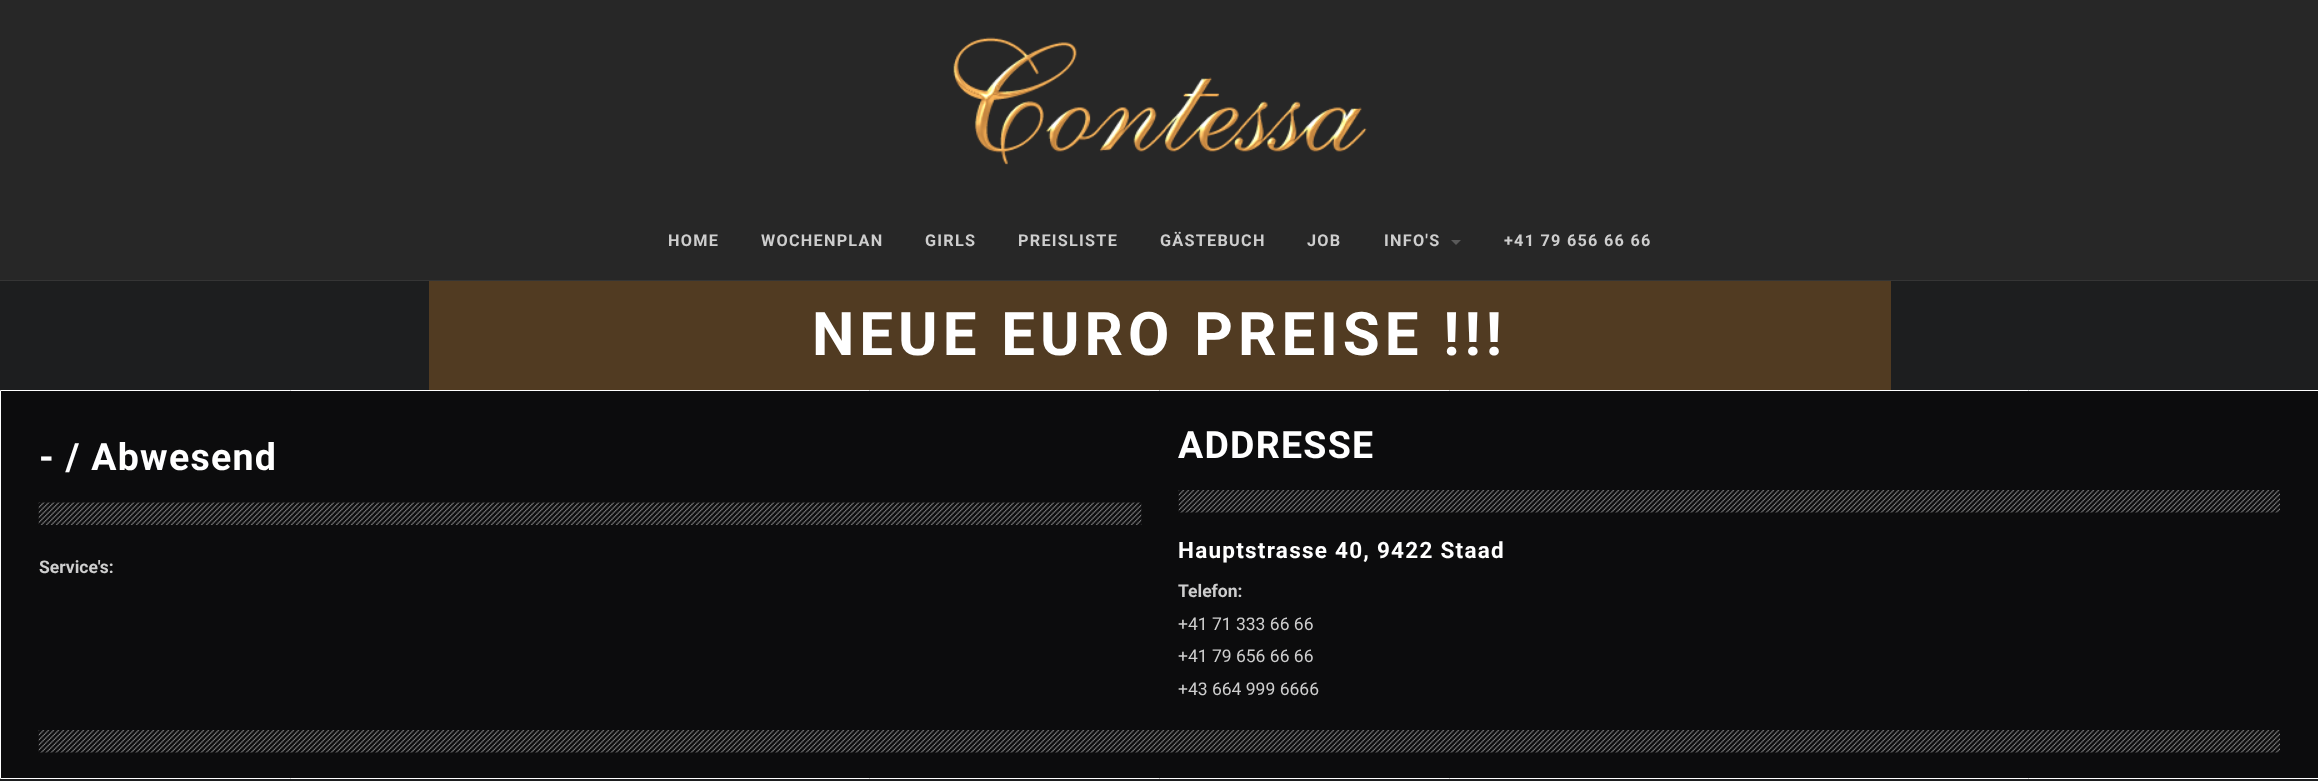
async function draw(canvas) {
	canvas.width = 2318;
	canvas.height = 781;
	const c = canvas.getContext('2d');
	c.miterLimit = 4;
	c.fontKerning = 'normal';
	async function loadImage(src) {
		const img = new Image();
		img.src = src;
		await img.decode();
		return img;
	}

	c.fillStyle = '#1d1e1f';
	c.fillRect(0, 0, 2318, 781);
	c.fillStyle = '#353535';
	c.fillRect(0, 280, 2318, 1);
	c.fillStyle = '#272727';
	c.fillRect(0, 0, 2318, 280);
	c.drawImage(await loadImage('img1.png'), 953, 37, 414, 128);
	c.letterSpacing = '1.25px';
	c.font = 'bold 16.25px Roboto';
	c.fillStyle = '#cecece';
	for (const [text, x, y] of [
		['HOME', 668, 246],
		['WOCHENPLAN', 761, 246],
		['GIRLS', 925, 246],
		['PREISLISTE', 1018, 246],
		['GÄSTEBUCH', 1160, 246],
		['JOB', 1307, 246],
		['INFO\'S', 1384, 246],
	]) {
		c.fillText(text, x, y);
	}
	c.fillStyle = '#5a5a5a';
	c.beginPath();
	c.moveTo(1451, 240);
	c.lineTo(1461, 240);
	c.lineTo(1456, 245);
	c.closePath();
	c.fill();
	c.fillStyle = '#cecece';
	c.fillText('+41 79 656 66 66', 1504, 246);
	c.fillStyle = '#513b22';
	c.fillRect(429, 281, 1462, 109);
	c.letterSpacing = '5px';
	c.font = 'bold 60px Roboto';
	c.fillStyle = '#fff';
	c.fillText('NEUE EURO PREISE !!!', 812, 355);
	c.fillStyle = '#0c0c0d';
	c.beginPath();
	c.rect(0.5, 390.5, 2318, 388);
	c.fill();
	c.strokeStyle = '#fff';
	c.stroke();
	c.letterSpacing = '1.25px';
	c.font = 'bold 37.5px Roboto';
	c.fillStyle = '#fff';
	c.fillText('- / Abwesend', 39, 470);
	c.drawImage(await loadImage('img2.png'), 38, 502, 1104, 23);
	c.letterSpacing = '0px';
	c.font = 'bold 17.5px Roboto';
	c.fillStyle = '#cecece';
	c.fillText('Service\'s:', 39, 573);
	c.letterSpacing = '1.25px';
	c.font = 'bold 37.5px Roboto';
	c.fillStyle = '#fff';
	c.fillText('ADDRESSE', 1178, 458);
	c.drawImage(await loadImage('img3.png'), 1178, 490, 1102, 23);
	c.font = 'bold 22.5px Roboto';
	c.fillText('Hauptstrasse 40, 9422 Staad', 1178, 558);
	c.letterSpacing = '0px';
	c.font = 'bold 17.5px Roboto';
	c.fillStyle = '#cecece';
	c.fillText('Telefon:', 1178, 597);
	c.font = '17.5px Roboto';
	for (const [text, x, y] of [
		['+41 71 333 66 66', 1178, 630],
		['+41 79 656 66 66', 1178, 662],
		['+43 664 999 6666', 1178, 695],
	]) {
		c.fillText(text, x, y);
	}
	c.drawImage(await loadImage('img4.png'), 38, 730, 2242, 23);
}

draw(document.querySelector('canvas'));
